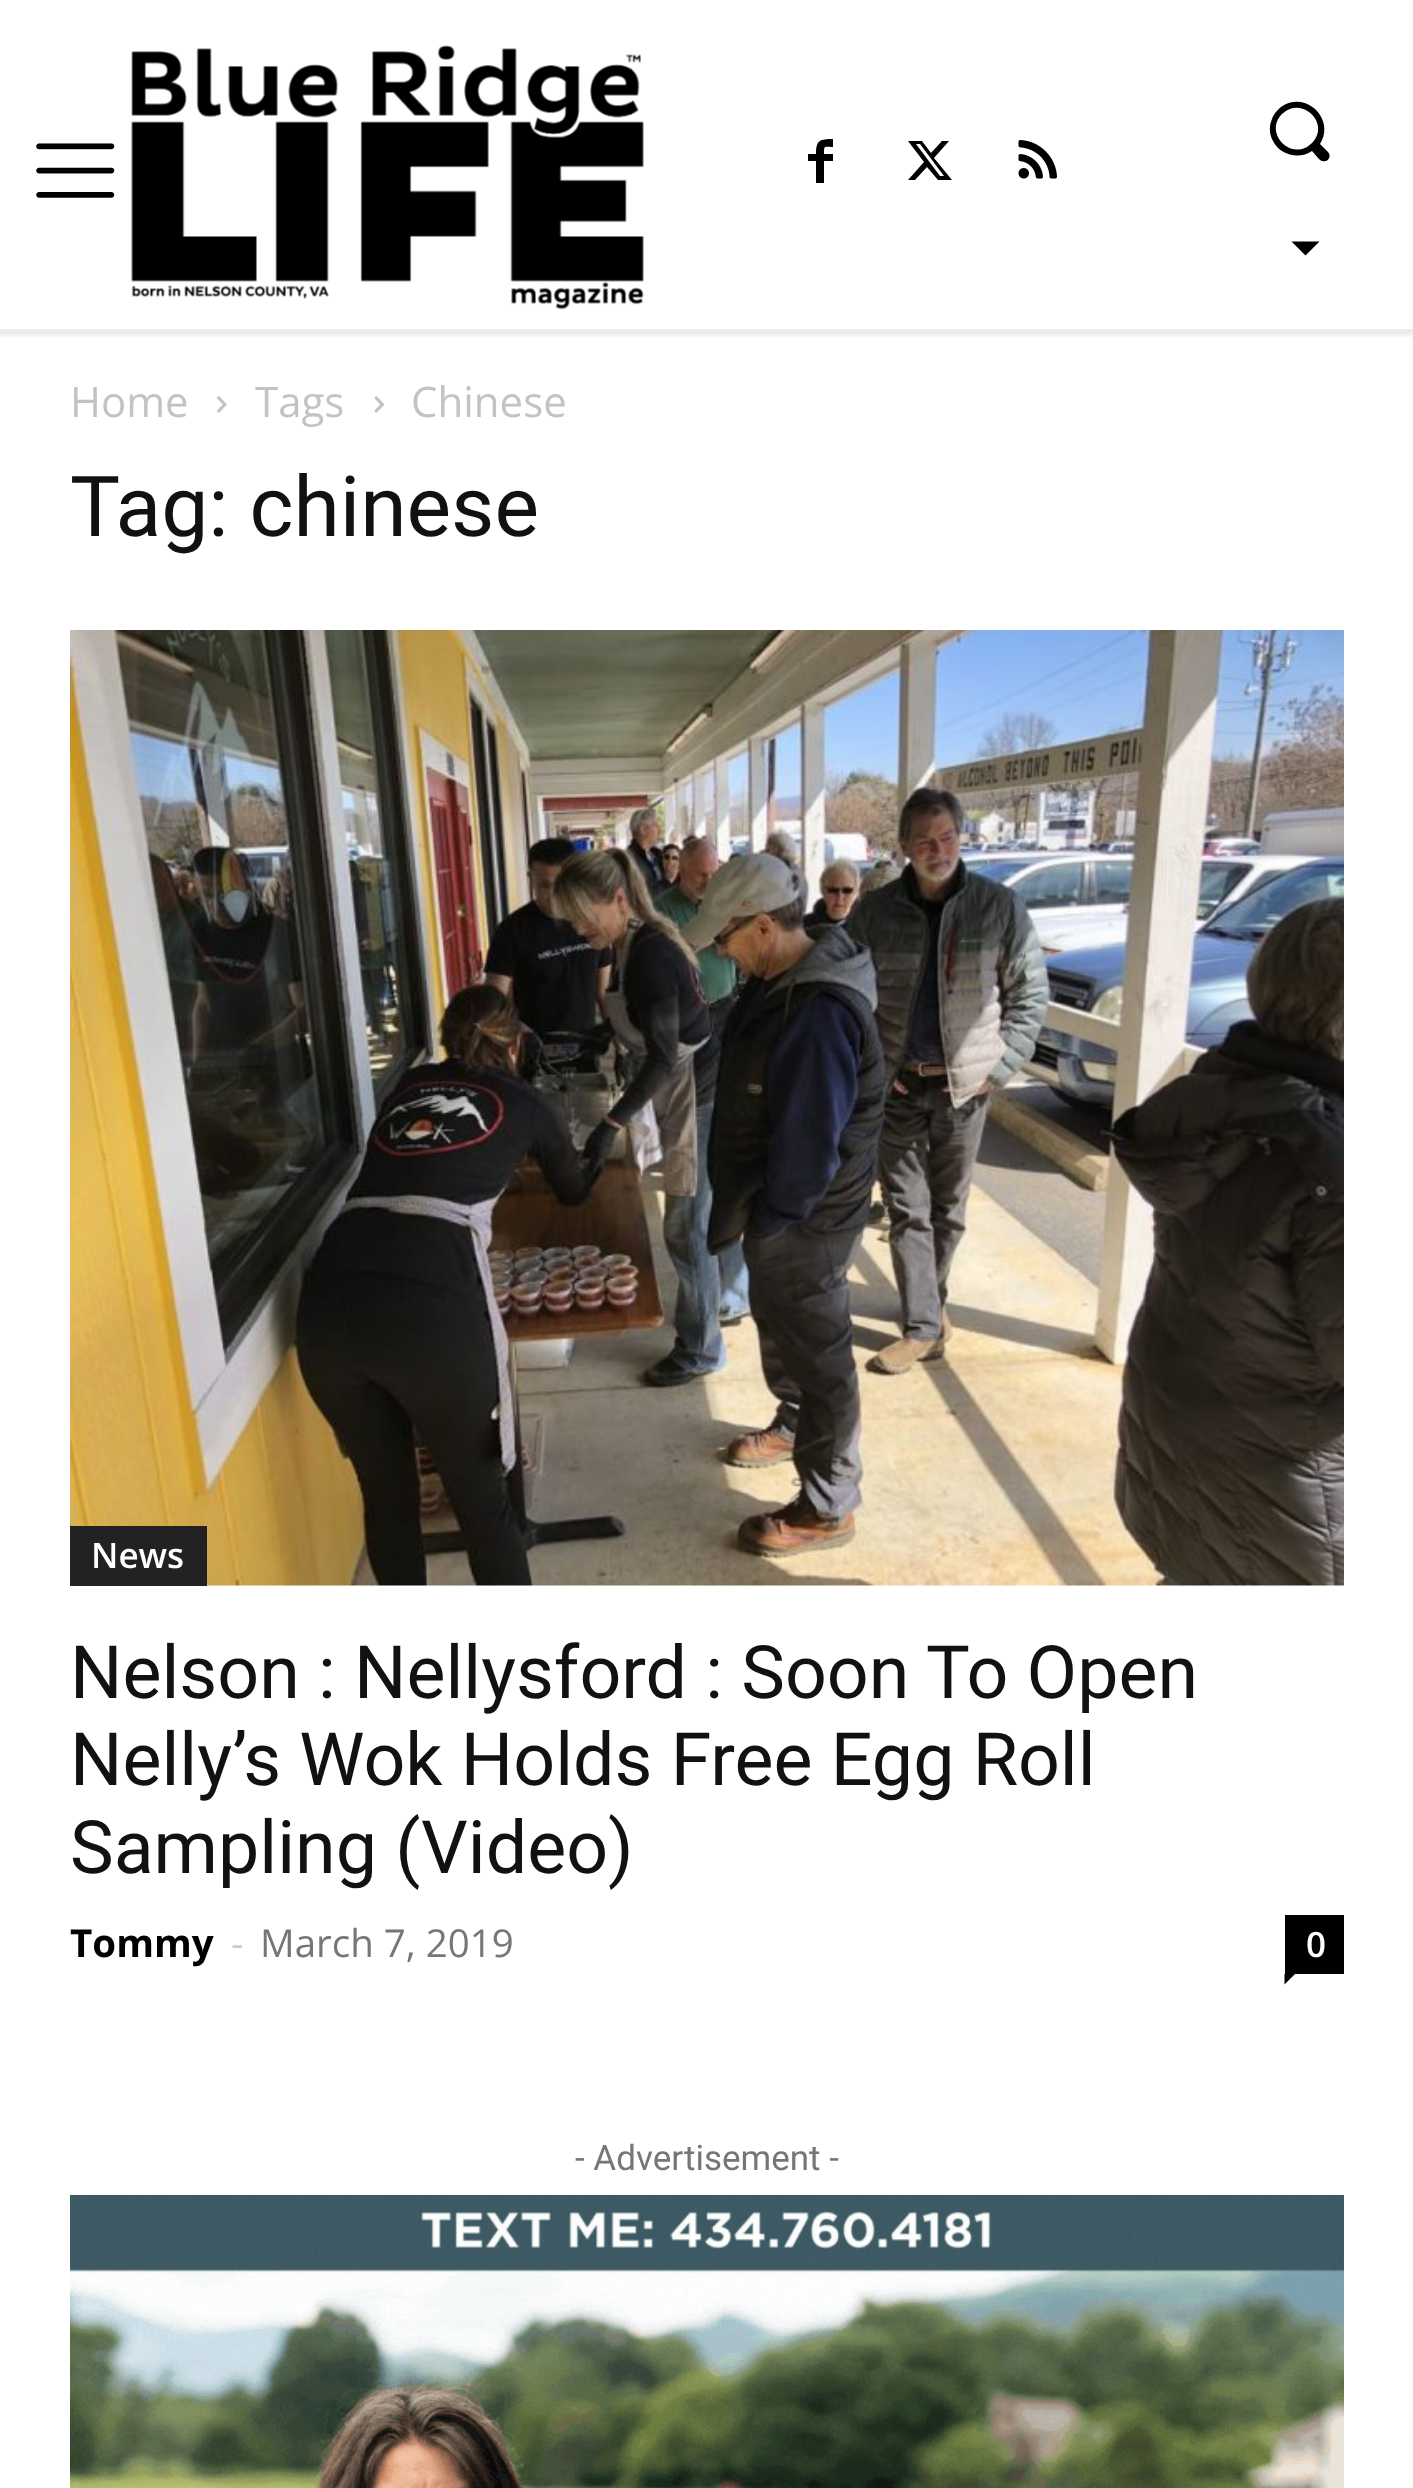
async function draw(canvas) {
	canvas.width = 1413;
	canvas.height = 2488;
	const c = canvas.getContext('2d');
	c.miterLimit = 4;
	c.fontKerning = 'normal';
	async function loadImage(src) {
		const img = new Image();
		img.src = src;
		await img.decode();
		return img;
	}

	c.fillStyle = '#fff';
	c.fillRect(0, 0, 1413, 2488);
	c.drawImage(await loadImage('img1.png'), 36, 143, 79, 55);
	c.drawImage(await loadImage('img2.png'), 130, 45, 514, 265);
	c.fillStyle = '#000';
	c.beginPath();
	c.moveTo(833, 147);
	c.bezierCurveTo(824, 147, 824, 145, 824, 154);
	c.lineTo(833, 154);
	c.lineTo(833, 161);
	c.lineTo(824, 161);
	c.lineTo(824, 183);
	c.lineTo(816, 183);
	c.lineTo(816, 161);
	c.lineTo(808, 161);
	c.lineTo(808, 154);
	c.lineTo(816, 154);
	c.bezierCurveTo(816, 140, 820, 139, 833, 139);
	c.closePath();
	c.fill();
	c.beginPath();
	c.moveTo(942, 141);
	c.lineTo(949, 141);
	c.lineTo(934, 158);
	c.lineTo(952, 180);
	c.lineTo(938, 180);
	c.lineTo(927, 167);
	c.lineTo(915, 180);
	c.lineTo(908, 180);
	c.lineTo(924, 162);
	c.lineTo(908, 141);
	c.lineTo(922, 141);
	c.lineTo(931, 153);
	c.closePath();
	c.moveTo(940, 176);
	c.lineTo(944, 176);
	c.lineTo(920, 144);
	c.lineTo(916, 144);
	c.closePath();
	c.fill();
	c.drawImage(await loadImage('img3.png'), 1018, 140, 39, 39);
	c.beginPath();
	c.moveTo(1328, 152);
	c.lineTo(1320, 144);
	c.bezierCurveTo(1335, 121, 1309, 92, 1284, 105);
	c.bezierCurveTo(1279, 108, 1274, 113, 1272, 119);
	c.bezierCurveTo(1269, 126, 1269, 134, 1273, 141);
	c.bezierCurveTo(1280, 155, 1299, 160, 1312, 151);
	c.bezierCurveTo(1315, 154, 1319, 160, 1322, 161);
	c.bezierCurveTo(1328, 163, 1332, 156, 1328, 152);
	c.closePath();
	c.moveTo(1312, 143);
	c.bezierCurveTo(1292, 163, 1263, 133, 1282, 114);
	c.bezierCurveTo(1302, 95, 1331, 124, 1312, 143);
	c.closePath();
	c.fill();
	c.beginPath();
	c.moveTo(1291.5, 241.5);
	c.lineTo(1319.5, 241.5);
	c.lineTo(1305.5, 255.5);
	c.closePath();
	c.fill();
	c.save();
	c.beginPath();
	c.rect(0, 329, 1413, 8);
	c.clip();
	c.fillStyle = '#00000014';
	c.filter = 'blur(2px)';
	c.beginPath();
	c.rect(-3, 0, 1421, 336);
	c.fill();
	c.filter = 'none';
	c.restore();
	c.font = '42px Open Sans';
	c.fillStyle = '#c3c3c3';
	c.fillText('Home', 70, 417);
	c.drawImage(await loadImage('img4.png'), 217, 396, 10, 17);
	c.fillText('Tags', 255, 417);
	c.drawImage(await loadImage('img5.png'), 374, 396, 10, 17);
	c.fillText('Chinese', 411, 417);
	c.font = '84px Roboto';
	c.fillStyle = '#111';
	c.fillText('Tag: chinese', 70, 536);
	c.drawImage(await loadImage('img6.png'), 70, 630, 1274, 956);
	c.fillStyle = '#222';
	c.fillRect(70, 1526, 137, 60);
	c.font = '600 35px Open Sans';
	c.fillStyle = '#fff';
	c.fillText('News', 91, 1568);
	c.font = '73.5px Roboto';
	c.fillStyle = '#111';
	for (const [text, x, y] of [
		['Nelson : Nellysford : Soon To Open', 70, 1698],
		['Nelly’s Wok Holds Free Egg Roll', 70, 1785],
		['Sampling (Video)', 70, 1873],
	]) {
		c.fillText(text, x, y);
	}
	c.font = 'bold 38.5px Open Sans';
	c.fillStyle = '#000';
	c.fillText('Tommy', 70, 1957);
	c.font = '38.5px Open Sans';
	c.fillStyle = '#ccc';
	c.fillText('-', 231, 1957);
	c.fillStyle = '#767676';
	c.fillText('March 7, 2019', 260, 1957);
	c.fillStyle = '#000';
	c.fillRect(1285, 1915, 59, 59);
	c.font = '600 35px Open Sans';
	c.fillStyle = '#fff';
	c.fillText('0', 1306, 1957);
	c.fillStyle = '#000';
	c.beginPath();
	c.moveTo(1284.5, 1974);
	c.lineTo(1295, 1974);
	c.lineTo(1284.5, 1984.5);
	c.closePath();
	c.fill();
	c.font = '35px Roboto';
	c.fillStyle = '#767676';
	c.fillText('- Advertisement -', 575, 2170);
	c.drawImage(await loadImage('img7.png'), 70, 2195, 1274, 293);
}

draw(document.querySelector('canvas'));
